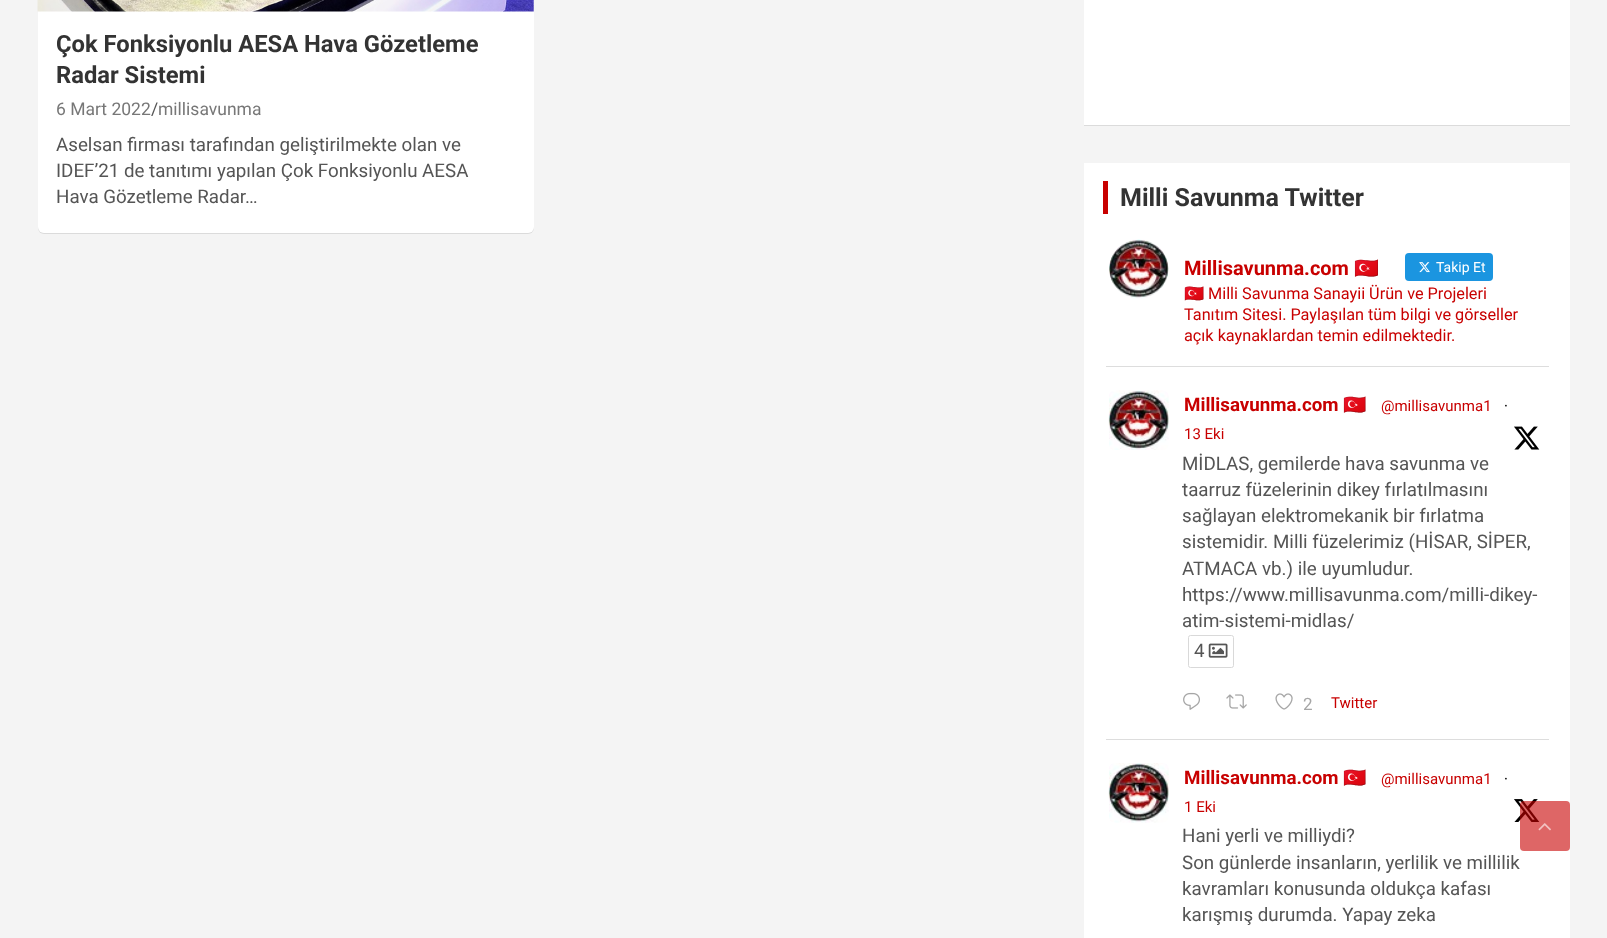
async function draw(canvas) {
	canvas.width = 1607;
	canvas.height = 938;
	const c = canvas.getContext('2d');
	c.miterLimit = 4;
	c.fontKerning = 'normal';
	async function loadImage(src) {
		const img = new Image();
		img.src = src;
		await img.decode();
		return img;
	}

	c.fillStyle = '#f4f4f4';
	c.fillRect(0, 0, 1607, 938);
	c.fillStyle = '#0000001a';
	c.filter = 'blur(0.5px)';
	c.beginPath();
	c.roundRect(38, -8, 496, 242, 6);
	c.fill();
	c.filter = 'none';
	c.fillStyle = '#fff';
	c.beginPath();
	c.roundRect(38, -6, 496, 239, 6);
	c.fill();
	c.drawImage(await loadImage('img1.png'), 37, 0, 497, 12);
	c.font = 'bold 23.75px Roboto';
	c.fillStyle = '#333';
	c.fillText('Çok Fonksiyonlu AESA Hava Gözetleme', 56, 52);
	c.fillText('Radar Sistemi', 56, 83);
	c.font = '17.5px Roboto';
	c.fillStyle = '#777';
	c.fillText('6 Mart 2022', 56, 115);
	c.fillStyle = '#555';
	c.fillText('/', 151, 115);
	c.fillStyle = '#777';
	c.fillText('millisavunma', 158, 115);
	c.font = '18.75px Roboto';
	c.fillStyle = '#555';
	for (const [text, x, y] of [
		['Aselsan firması tarafından geliştirilmekte olan ve', 56, 151],
		['IDEF’21 de tanıtımı yapılan Çok Fonksiyonlu AESA', 56, 177],
		['Hava Gözetleme Radar…', 56, 203],
	]) {
		c.fillText(text, x, y);
	}
	c.fillStyle = '#0000001a';
	c.filter = 'blur(0.5px)';
	c.beginPath();
	c.rect(1084, -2, 486, 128);
	c.fill();
	c.filter = 'none';
	for (const [x, y, w, h, color] of [
		[1084, 0, 486, 125, '#fff'],
		[1084, 163, 486, 775, '#fff'],
		[1103, 181, 5, 33, '#c80000'],
	]) {
		c.fillStyle = color;
		c.fillRect(x, y, w, h);
	}
	c.font = 'bold 25px Roboto';
	c.fillStyle = '#333';
	c.fillText('Milli Savunma Twitter', 1120, 206);
	c.fillStyle = '#ddd';
	c.fillRect(1106, 366, 443, 1);
	c.drawImage(await loadImage('img2.png'), 1109, 239, 60, 60);
	c.font = 'bold 20px Roboto';
	c.fillStyle = '#c80000';
	c.fillText('Millisavunma.com', 1184, 275);
	c.font = 'bold 20px Noto Color Emoji';
	c.fillText('🇹🇷', 1354, 275);
	c.fillStyle = '#1b95e0';
	c.beginPath();
	c.roundRect(1405, 253, 88, 28, 4);
	c.fill();
	c.drawImage(await loadImage('img3.png'), 1419, 262, 11, 11);
	c.font = '14px Roboto';
	c.fillStyle = '#fff';
	c.fillText('Takip Et', 1436, 272);
	c.font = '16.25px Noto Color Emoji';
	c.fillStyle = '#c80000';
	c.fillText('🇹🇷', 1184, 299);
	c.font = '16.25px Roboto';
	for (const [text, x, y] of [
		['Milli Savunma Sanayii Ürün ve Projeleri', 1208, 299],
		['Tanıtım Sitesi. Paylaşılan tüm bilgi ve görseller', 1184, 320],
		['açık kaynaklardan temin edilmektedir.', 1184, 341],
	]) {
		c.fillText(text, x, y);
	}
	c.fillStyle = '#ddd';
	c.fillRect(1106, 739, 443, 1);
	c.drawImage(await loadImage('img4.png'), 1108, 390, 61, 60);
	c.font = 'bold 18.75px Roboto';
	c.fillStyle = '#c80000';
	c.fillText('Millisavunma.com', 1184, 411);
	c.font = 'bold 18.75px Noto Color Emoji';
	c.fillText('🇹🇷', 1343, 411);
	c.font = '15px Roboto';
	c.fillText('@millisavunma1', 1381, 411);
	c.fillStyle = '#000';
	c.fillText('·', 1504, 411);
	c.fillStyle = '#c80000';
	c.fillText('13 Eki', 1184, 439);
	c.drawImage(await loadImage('img5.png'), 1514, 426, 26, 24);
	c.font = '18.75px Roboto';
	c.fillStyle = '#555';
	for (const [text, x, y] of [
		['MİDLAS, gemilerde hava savunma ve', 1182, 470],
		['taarruz füzelerinin dikey fırlatılmasını', 1182, 496],
		['sağlayan elektromekanik bir fırlatma', 1182, 522],
		['sistemidir. Milli füzelerimiz (HİSAR, SİPER,', 1182, 548],
		['ATMACA vb.) ile uyumludur.', 1182, 575],
		['https://www.millisavunma.com/milli-dikey-', 1182, 601],
		['atim-sistemi-midlas/', 1182, 627],
	]) {
		c.fillText(text, x, y);
	}
	c.beginPath();
	c.roundRect(1188.5, 635.5, 45, 32, 2);
	c.strokeStyle = '#d9d9d9';
	c.stroke();
	c.fillText('4', 1194, 657);
	c.drawImage(await loadImage('img6.png'), 1208, 643, 20, 15);
	c.drawImage(await loadImage('img7.png'), 1183, 692, 17, 18);
	c.drawImage(await loadImage('img8.png'), 1226, 694, 21, 15);
	c.drawImage(await loadImage('img9.png'), 1275, 693, 18, 17);
	c.font = '17px Roboto';
	c.fillStyle = '#a6a6a6';
	c.fillText('2', 1303, 710);
	c.font = '15px Roboto';
	c.fillStyle = '#c80000';
	c.fillText('Twitter', 1331, 708);
	c.drawImage(await loadImage('img10.png'), 1108, 763, 61, 60);
	c.font = 'bold 18.75px Roboto';
	c.fillText('Millisavunma.com', 1184, 784);
	c.font = 'bold 18.75px Noto Color Emoji';
	c.fillText('🇹🇷', 1343, 784);
	c.font = '15px Roboto';
	c.fillText('@millisavunma1', 1381, 784);
	c.fillStyle = '#000';
	c.fillText('·', 1504, 784);
	c.fillStyle = '#c80000';
	c.fillText('1 Eki', 1184, 812);
	c.drawImage(await loadImage('img11.png'), 1514, 799, 26, 23);
	c.font = '18.75px Roboto';
	c.fillStyle = '#555';
	for (const [text, x, y] of [
		['Hani yerli ve milliydi?', 1182, 842],
		['Son günlerde insanların, yerlilik ve millilik', 1182, 869],
		['kavramları konusunda oldukça kafası', 1182, 895],
		['karışmış durumda. Yapay zeka', 1182, 921],
	]) {
		c.fillText(text, x, y);
	}
	c.fillStyle = '#c8000099';
	c.beginPath();
	c.roundRect(1520, 801, 50, 50, 4);
	c.fill();
	c.drawImage(await loadImage('img12.png'), 1538, 823, 13, 8);
}

draw(document.querySelector('canvas'));
